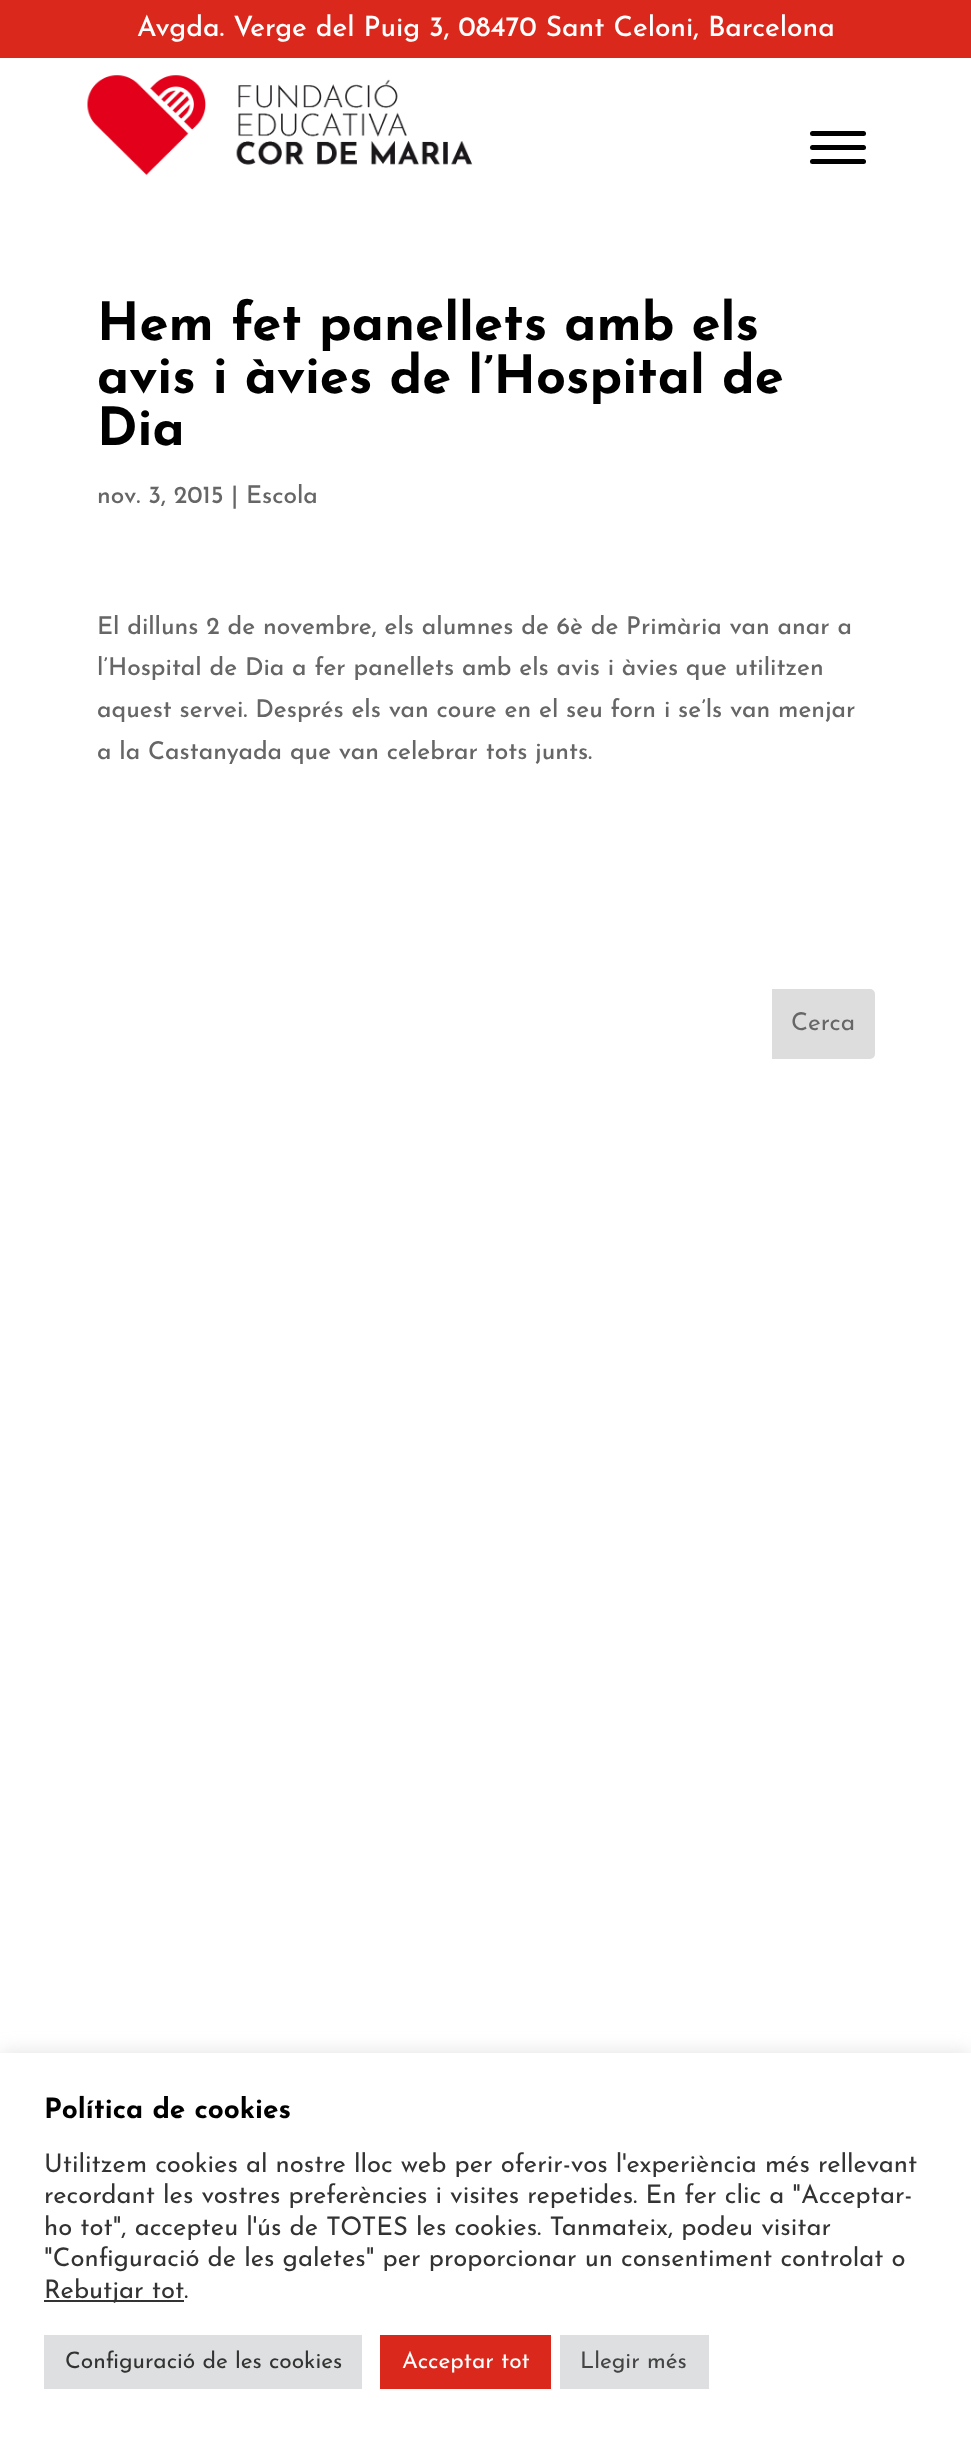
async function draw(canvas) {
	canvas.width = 971;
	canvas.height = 2441;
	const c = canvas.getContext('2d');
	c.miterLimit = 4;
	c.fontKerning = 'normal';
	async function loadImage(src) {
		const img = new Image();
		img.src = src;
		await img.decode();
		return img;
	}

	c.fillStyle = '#da291c';
	c.fillRect(0, 0, 971, 2441);
	c.font = '500 28px Josefin Sans';
	c.fillStyle = '#fff';
	c.fillText('Avgda. Verge del Puig 3, 08470 Sant Celoni, Barcelona', 137, 36);
	c.fillRect(0, 58, 971, 1995);
	c.drawImage(await loadImage('img1.png'), 87, 75, 386, 100);
	c.fillStyle = '#000';
	c.beginPath();
	c.roundRect(810, 131, 56, 5, 2.5);
	c.fill();
	c.beginPath();
	c.roundRect(810, 145, 56, 5, 2.5);
	c.fill();
	c.beginPath();
	c.roundRect(810, 159, 56, 5, 2.5);
	c.fill();
	c.font = 'bold 52.5px Josefin Sans';
	for (const [text, x, y] of [
		['Hem fet panellets amb els', 97, 340],
		['avis i àvies de l’Hospital de', 97, 393],
		['Dia', 97, 445],
	]) {
		c.fillText(text, x, y);
	}
	c.font = '500 24.5px Josefin Sans';
	c.fillStyle = '#666';
	for (const [text, x, y] of [
		['nov. 3, 2015 | Escola', 97, 503],
		['El dilluns 2 de novembre, els alumnes de 6è de Primària van anar a', 97, 634],
		['l’Hospital de Dia a fer panellets amb els avis i àvies que utilitzen', 97, 675],
		['aquest servei. Després els van coure en el seu forn i se’ls van menjar', 97, 717],
		['a la Castanyada que van celebrar tots junts.', 97, 759],
	]) {
		c.fillText(text, x, y);
	}
	c.fillStyle = '#ddd';
	c.beginPath();
	c.roundRect(773, 990, 101, 68, [0, 4, 4, 0]);
	c.fill();
	c.strokeStyle = '#ddd';
	c.lineWidth = 2;
	c.stroke();
	c.font = '24.5px Josefin Sans';
	c.fillStyle = '#666';
	c.fillText('Cerca', 791, 1030);
	c.fillStyle = '#acabab4d';
	c.filter = 'blur(9px)';
	c.beginPath();
	c.rect(0, 2051, 971, 389);
	c.fill();
	c.filter = 'none';
	c.fillStyle = '#fff';
	c.fillRect(0, 2053, 971, 388);
	c.font = 'bold 28px Josefin Sans';
	c.fillStyle = '#000';
	c.fillText('Política de cookies', 44, 2118);
	c.font = '25.65px Josefin Sans';
	c.fillStyle = '#333';
	for (const [text, x, y] of [
		['Utilitzem cookies al nostre lloc web per oferir-vos l\'experiència més rellevant', 44, 2172],
		['recordant les vostres preferències i visites repetides. En fer clic a "Acceptar-', 44, 2203],
		['ho tot", accepteu l\'ús de TOTES les cookies. Tanmateix, podeu visitar', 44, 2235],
		['"Configuració de les galetes" per proporcionar un consentiment controlat o', 44, 2266],
	]) {
		c.fillText(text, x, y);
	}
	c.fillRect(44, 2300, 140, 2);
	c.fillText('Rebutjar tot.', 44, 2298);
	c.fillStyle = '#dedfe0';
	c.fillRect(44, 2335, 318, 54);
	c.font = '22.75px Josefin Sans';
	c.fillStyle = '#333';
	c.fillText('Configuració de les cookies', 65, 2368);
	c.fillStyle = '#da291c';
	c.fillRect(380, 2335, 171, 54);
	c.fillStyle = '#fff';
	c.fillText('Acceptar tot', 402, 2368);
	c.fillStyle = '#dedfe0';
	c.fillRect(560, 2335, 149, 54);
	c.fillStyle = '#444';
	c.fillText('Llegir més', 580, 2368);
}

draw(document.querySelector('canvas'));
